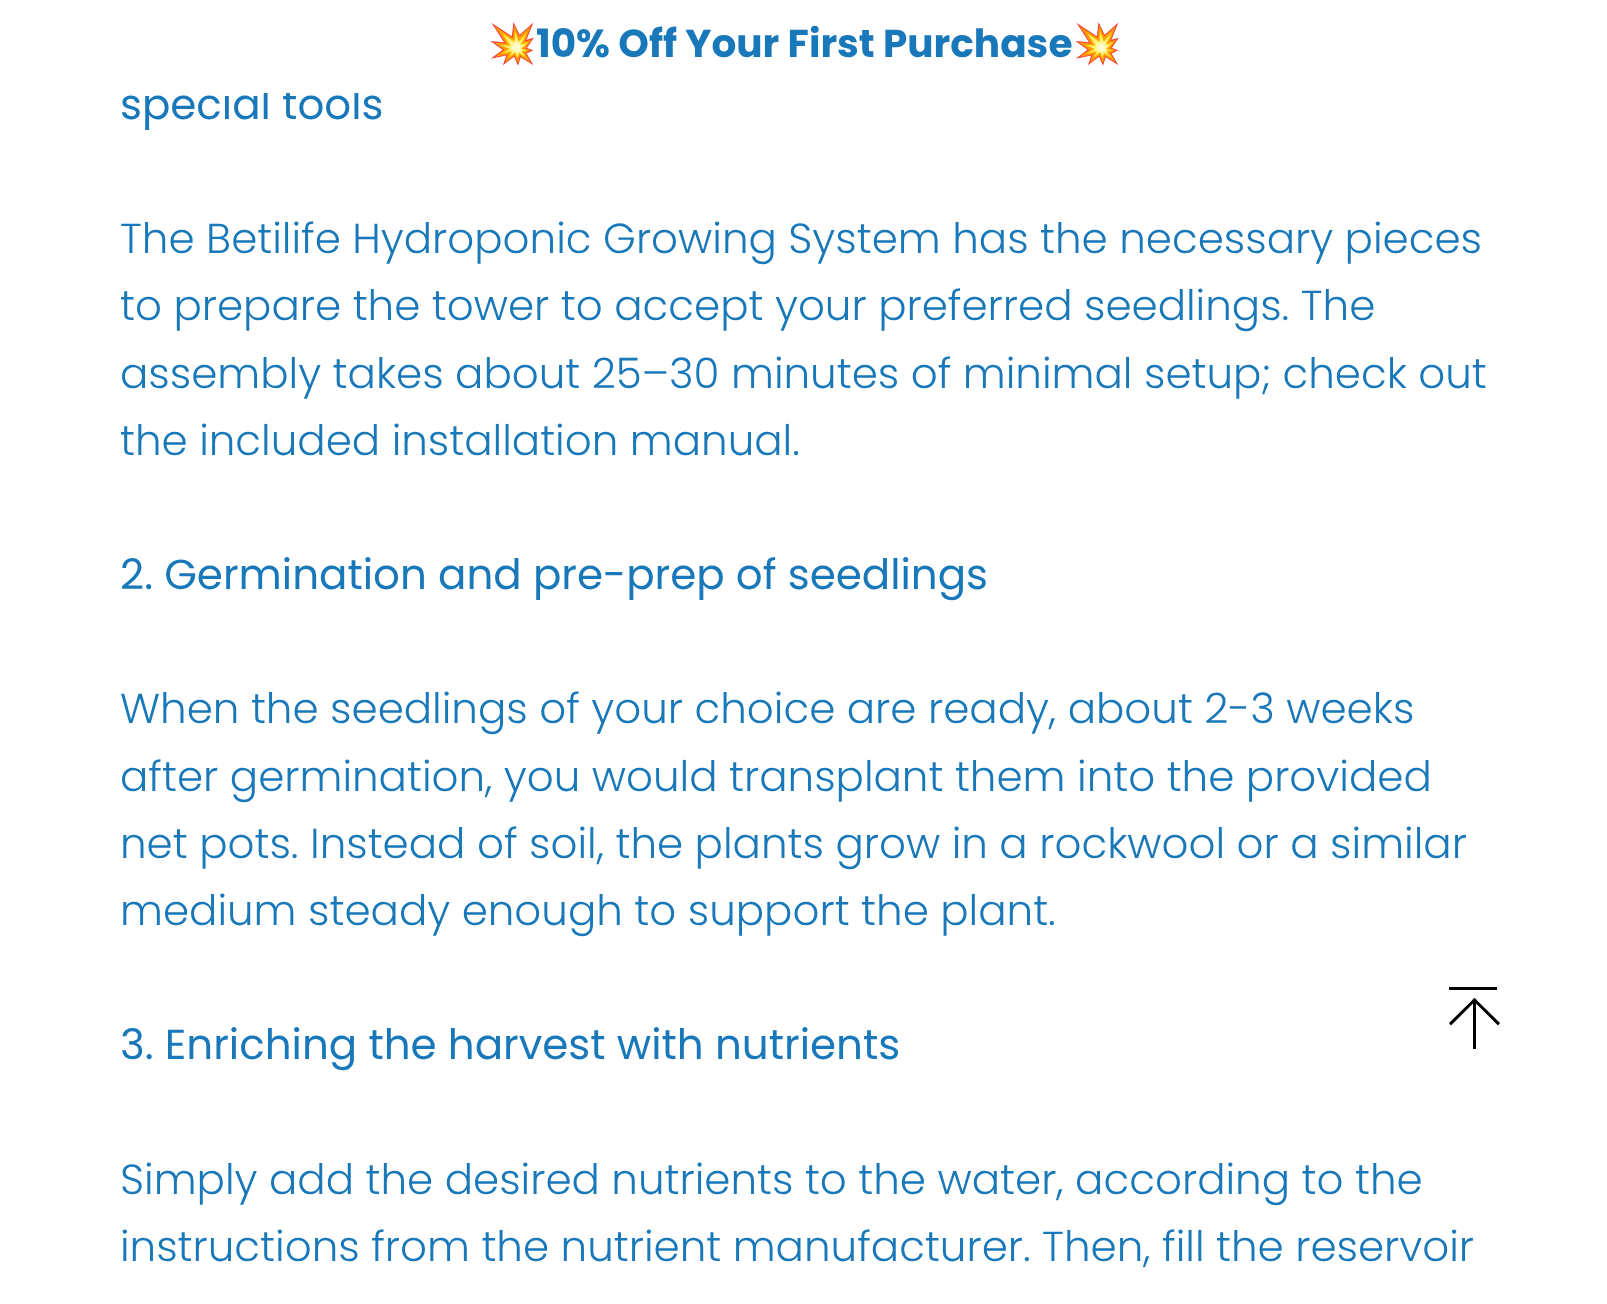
async function draw(canvas) {
	canvas.width = 1607;
	canvas.height = 1304;
	const c = canvas.getContext('2d');
	c.miterLimit = 4;
	c.fontKerning = 'normal';

	c.fillStyle = '#fff';
	c.fillRect(0, 0, 1607, 1304);
	c.font = '42px Poppins';
	c.fillStyle = '#1878b9';
	c.fillText('special tools', 120, 119);
	c.fillStyle = '#fff';
	c.fillRect(224, 87, 135, 6);
	c.font = 'bold 39px Noto Color Emoji';
	c.fillStyle = '#1878b9';
	c.fillText('💥', 488, 57);
	c.font = 'bold 39px Poppins';
	c.fillText('10% Off Your First Purchase', 536, 57);
	c.font = 'bold 39px Noto Color Emoji';
	c.fillText('💥', 1073, 57);
	c.font = '300 42px Poppins';
	for (const [text, x, y] of [
		['The Betilife Hydroponic Growing System has the necessary pieces', 120, 253],
		['to prepare the tower to accept your preferred seedlings. The', 120, 320],
		['assembly takes about 25–30 minutes of minimal setup; check out', 120, 388],
		['the included installation manual.', 120, 455],
	]) {
		c.fillText(text, x, y);
	}
	c.font = '42px Poppins';
	c.fillText('2. Germination and pre-prep of seedlings', 120, 589);
	c.font = '300 42px Poppins';
	for (const [text, x, y] of [
		['When the seedlings of your choice are ready, about 2-3 weeks', 120, 723],
		['after germination, you would transplant them into the provided', 120, 791],
		['net pots. Instead of soil, the plants grow in a rockwool or a similar', 120, 858],
		['medium steady enough to support the plant.', 120, 925],
	]) {
		c.fillText(text, x, y);
	}
	c.font = '42px Poppins';
	c.fillText('3. Enriching the harvest with nutrients', 120, 1059);
	c.font = '300 42px Poppins';
	c.fillText('Simply add the desired nutrients to the water, according to the', 120, 1194);
	c.fillText('instructions from the nutrient manufacturer. Then, fill the reservoir', 120, 1261);
	c.fillStyle = '#000';
	c.beginPath();
	c.moveTo(1449, 1023);
	c.lineTo(1474.5, 998);
	c.lineTo(1476.5, 1000);
	c.lineTo(1451, 1025.5);
	c.closePath();
	c.fill();
	c.beginPath();
	c.moveTo(1474.5, 998);
	c.lineTo(1500, 1023);
	c.lineTo(1498, 1025.5);
	c.lineTo(1472.5, 1000);
	c.closePath();
	c.fill();
	c.fillRect(1449, 987, 48, 3);
	c.fillRect(1473, 1001, 3, 48);
}

draw(document.querySelector('canvas'));
